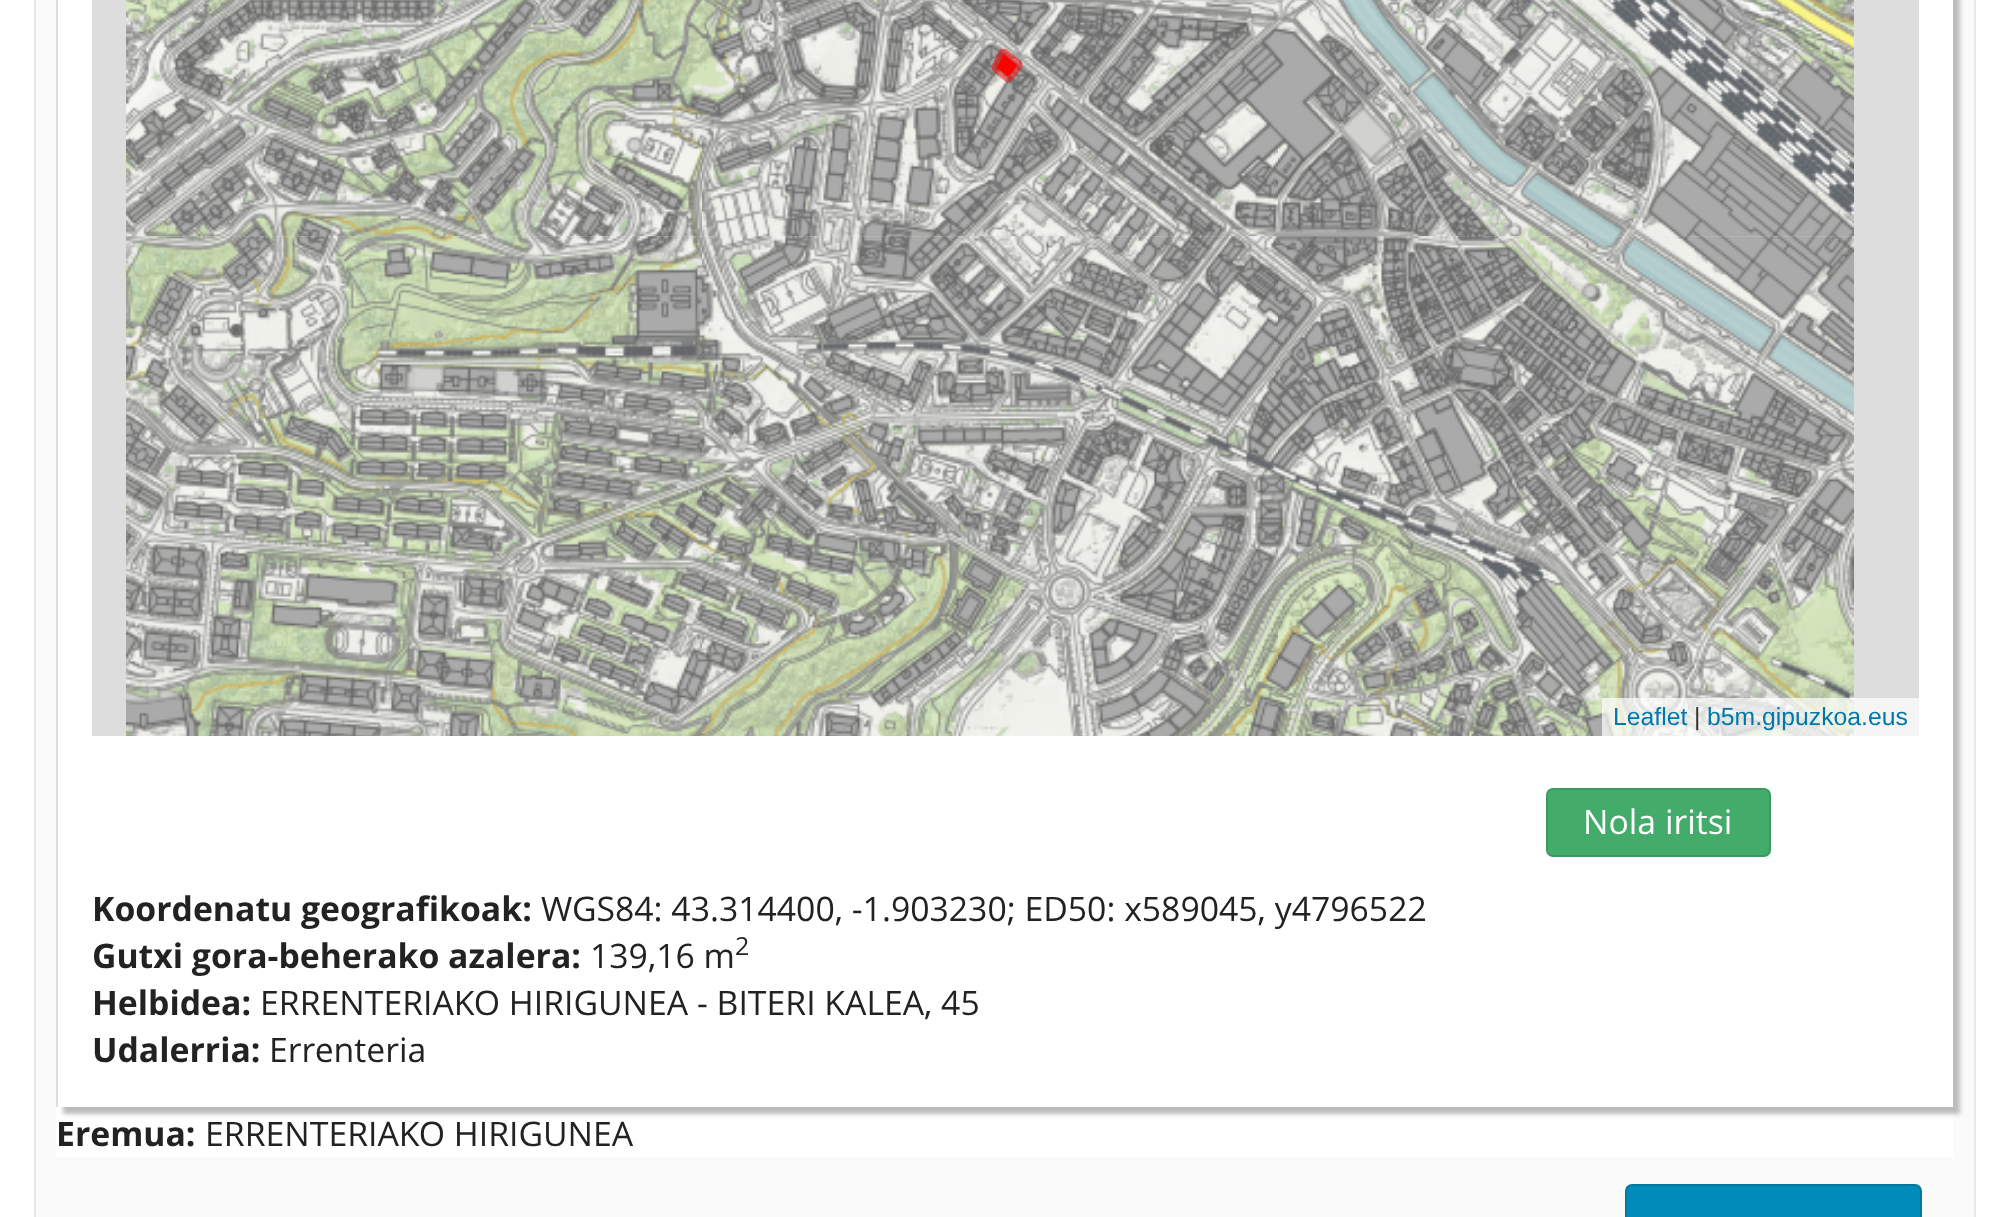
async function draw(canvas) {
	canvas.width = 2009;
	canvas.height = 1217;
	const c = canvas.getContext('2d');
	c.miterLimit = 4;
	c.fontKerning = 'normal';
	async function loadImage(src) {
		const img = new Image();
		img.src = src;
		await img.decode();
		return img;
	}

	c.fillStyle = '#fff';
	c.fillRect(0, 0, 2009, 1217);
	c.fillStyle = '#fafafa';
	c.beginPath();
	c.rect(35, -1, 1940, 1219);
	c.fill();
	c.strokeStyle = '#e8e8e8';
	c.lineWidth = 2;
	c.stroke();
	c.fillStyle = '#fff';
	c.fillRect(56, 0, 1897, 1157);
	c.save();
	c.beginPath();
	c.moveTo(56, 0);
	c.lineTo(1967, 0);
	c.lineTo(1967, 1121);
	c.lineTo(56, 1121);
	c.closePath();
	c.moveTo(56, -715);
	c.lineTo(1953, -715);
	c.lineTo(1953, 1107);
	c.lineTo(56, 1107);
	c.closePath();
	c.clip('evenodd');
	c.fillStyle = '#bbb';
	c.filter = 'blur(2px)';
	c.beginPath();
	c.rect(63, -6, 1897, 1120);
	c.fill();
	c.filter = 'none';
	c.restore();
	c.fillStyle = '#ddd';
	c.fillRect(56, 0, 2, 1107);
	c.fillRect(92, 0, 1827, 736);
	c.drawImage(await loadImage('img1.png'), 126, 0, 576, 237);
	c.drawImage(await loadImage('img2.png'), 702, 0, 576, 237);
	c.drawImage(await loadImage('img3.png'), 1278, 0, 576, 237);
	c.drawImage(await loadImage('img4.png'), 126, 236, 576, 500);
	c.drawImage(await loadImage('img5.png'), 702, 236, 576, 500);
	c.drawImage(await loadImage('img6.png'), 1278, 236, 576, 500);
	c.fillStyle = '#f00';
	c.beginPath();
	c.moveTo(1008, 76.5);
	c.lineTo(997, 67.5);
	c.lineTo(1003.5, 54);
	c.lineTo(1017, 65);
	c.lineTo(1012.5, 72);
	c.closePath();
	c.fill('evenodd');
	c.strokeStyle = '#ff000080';
	c.lineWidth = 11.2;
	c.lineCap = 'round';
	c.lineJoin = 'round';
	c.stroke();
	c.fillStyle = '#ffffffb3';
	c.fillRect(1602, 698, 317, 38);
	c.font = '24.75px Liberation Sans';
	c.fillStyle = '#0078a8';
	c.fillText('Leaflet', 1613, 725);
	c.fillStyle = '#333';
	c.fillText('|', 1694, 725);
	c.fillStyle = '#0078a8';
	c.fillText('b5m.gipuzkoa.eus', 1707, 725);
	c.fillStyle = '#43ac6a';
	c.beginPath();
	c.roundRect(1547, 789, 223, 67, 6);
	c.fill();
	c.strokeStyle = '#3c9a5f';
	c.lineWidth = 2;
	c.lineJoin = 'miter';
	c.stroke();
	c.font = '33.75px Open Sans';
	c.fillStyle = '#fff';
	c.fillText('Nola iritsi', 1583, 834);
	c.font = 'bold 33.75px Open Sans';
	c.fillStyle = '#222';
	c.fillText('Koordenatu geografikoak:', 92, 921);
	c.font = '33.75px Open Sans';
	c.fillText('WGS84: 43.314400, -1.903230; ED50: x589045, y4796522', 541, 921);
	c.font = 'bold 33.75px Open Sans';
	c.fillText('Gutxi gora-beherako azalera:', 92, 968);
	c.font = '33.75px Open Sans';
	c.fillText('139,16 m', 590, 968);
	c.font = '25px Open Sans';
	c.fillText('2', 735, 955);
	c.font = 'bold 33.75px Open Sans';
	c.fillText('Helbidea:', 92, 1015);
	c.font = '33.75px Open Sans';
	c.fillText('ERRENTERIAKO HIRIGUNEA - BITERI KALEA, 45', 260, 1015);
	c.font = 'bold 33.75px Open Sans';
	c.fillText('Udalerria:', 92, 1062);
	c.font = '33.75px Open Sans';
	c.fillText('Errenteria', 269, 1062);
	c.font = 'bold 33.75px Open Sans';
	c.fillText('Eremua:', 56, 1146);
	c.font = '33.75px Open Sans';
	c.fillText('ERRENTERIAKO HIRIGUNEA', 205, 1146);
	c.fillStyle = '#008cba';
	c.beginPath();
	c.roundRect(1626, 1185, 295, 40, 6);
	c.fill();
	c.strokeStyle = '#0079a1';
	c.stroke();
}

draw(document.querySelector('canvas'));
